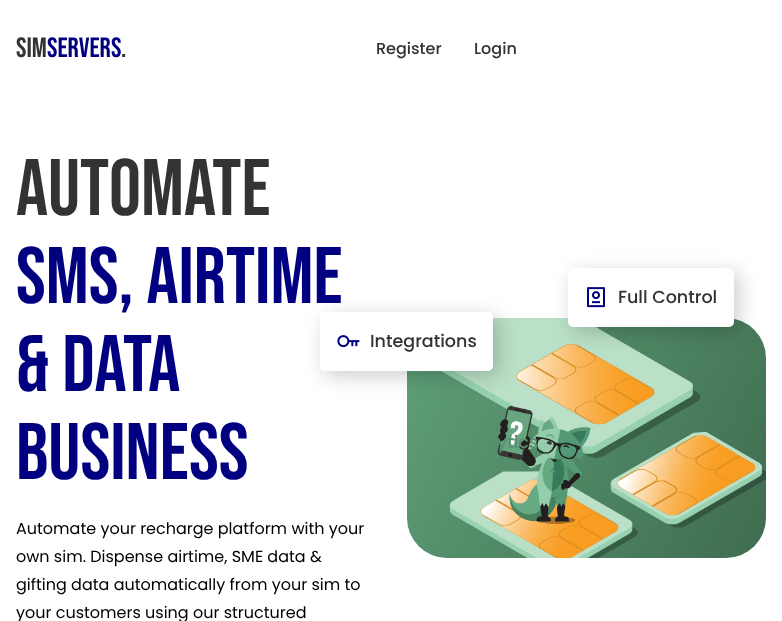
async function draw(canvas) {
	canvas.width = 782;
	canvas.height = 621;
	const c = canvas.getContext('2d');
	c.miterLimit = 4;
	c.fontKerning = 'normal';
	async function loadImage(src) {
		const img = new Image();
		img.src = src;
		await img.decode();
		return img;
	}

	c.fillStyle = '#fff';
	c.fillRect(0, 0, 782, 621);
	c.font = '28px Bebas Neue';
	c.fillStyle = '#333';
	c.fillText('SIM', 16, 57);
	c.fillStyle = '#000080';
	c.fillText('SERVERS', 47, 57);
	c.fillStyle = '#333';
	c.fillText('.', 121, 57);
	c.font = '500 16px Poppins';
	c.fillText('Register', 376, 54);
	c.fillText('Login', 474, 54);
	c.font = '80px Bebas Neue';
	c.fillText('Automate', 16, 215);
	c.drawImage(await loadImage('img2.png'), 407, 318, 359, 240);
	c.fillStyle = '#00000033';
	c.filter = 'blur(10px)';
	c.beginPath();
	c.roundRect(325, 317, 173, 59, 5);
	c.fill();
	c.filter = 'none';
	c.fillStyle = '#fff';
	c.beginPath();
	c.roundRect(320, 312, 173, 59, 5);
	c.fill();
	c.fillStyle = '#000080';
	for (const [text, x, y] of [
		['SMS, AIRTIME', 16, 303],
		['& DATA', 16, 391],
		['Business', 16, 479],
	]) {
		c.fillText(text, x, y);
	}
	c.font = '16px Poppins';
	c.fillStyle = '#000';
	for (const [text, x, y] of [
		['Automate your recharge platform with your', 16, 534],
		['own sim. Dispense airtime, SME data &', 16, 562],
		['gifting data automatically from your sim to', 16, 590],
		['your customers using our structured', 16, 618],
	]) {
		c.fillText(text, x, y);
	}
	c.fillStyle = '#00000033';
	c.filter = 'blur(10px)';
	c.beginPath();
	c.roundRect(573, 273, 166, 59, 5);
	c.fill();
	c.filter = 'none';
	c.fillStyle = '#fff';
	c.beginPath();
	c.roundRect(568, 268, 166, 59, 5);
	c.fill();
	c.drawImage(await loadImage('img1.png'), 587, 287, 18, 21);
	c.font = '500 17.5px Poppins';
	c.fillStyle = '#333';
	c.fillText('Full Control', 618, 303);
	c.drawImage(await loadImage('img3.png'), 337, 335, 23, 13);
	c.fillText('Integrations', 370, 347);
	c.fillStyle = '#5d8f71';
	c.fillText('ytics', 497, 448);
}

draw(document.querySelector('canvas'));
